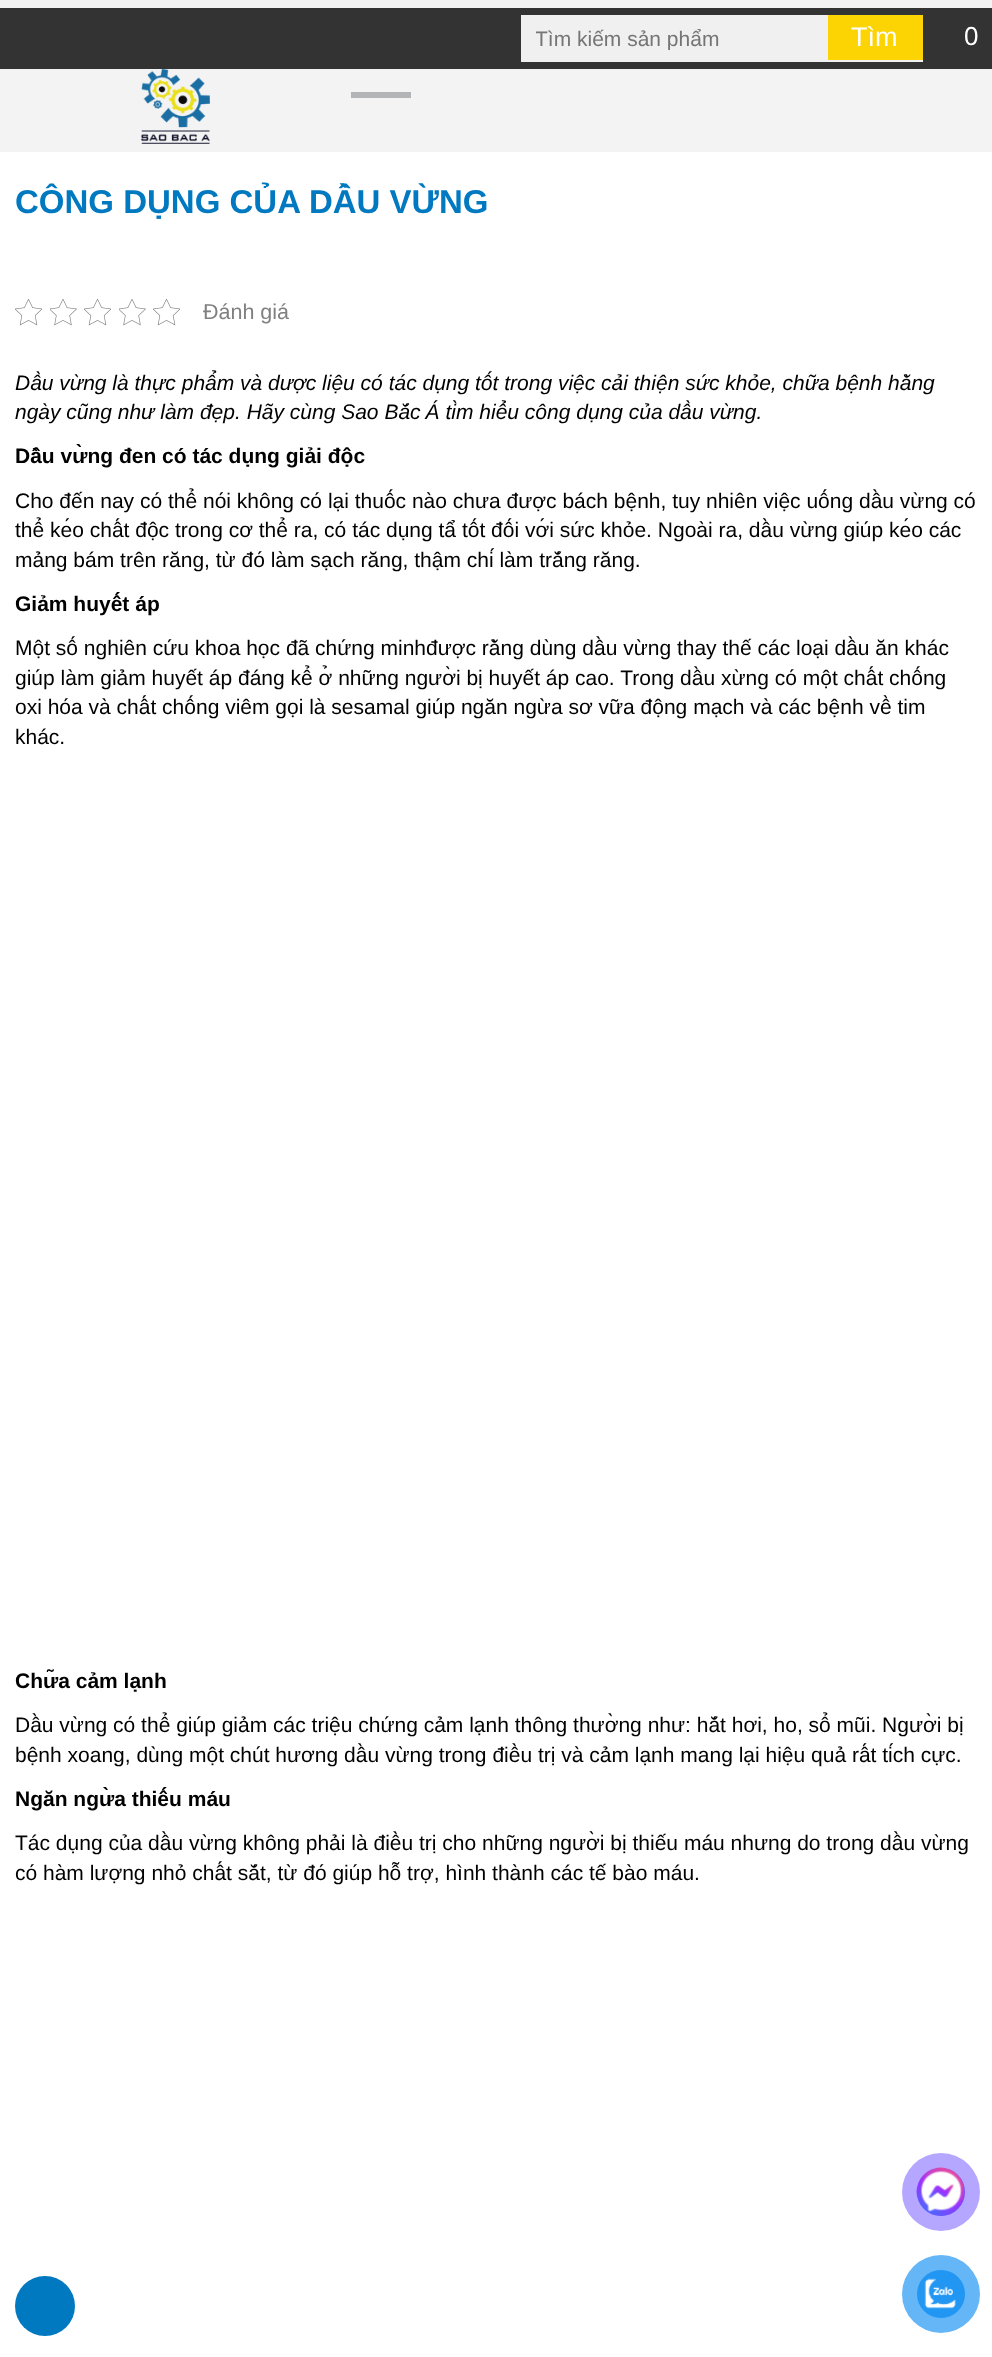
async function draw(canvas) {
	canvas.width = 992;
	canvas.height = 2357;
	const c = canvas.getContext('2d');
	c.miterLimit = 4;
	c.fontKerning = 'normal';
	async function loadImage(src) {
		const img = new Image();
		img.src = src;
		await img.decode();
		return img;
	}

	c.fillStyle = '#fff';
	c.fillRect(0, 0, 992, 2357);
	for (const [x, y, w, h, color] of [
		[0, 0, 992, 152, '#f3f3f3'],
		[0, 8, 992, 61, '#333'],
		[521, 15, 402, 47, '#f0f0f0'],
	]) {
		c.fillStyle = color;
		c.fillRect(x, y, w, h);
	}
	c.save();
	c.beginPath();
	c.rect(536, 26, 265, 24);
	c.clip();
	c.font = '21px Liberation Sans';
	c.fillStyle = '#757575';
	c.fillText('Tìm kiếm sản phẩm', 535, 46);
	c.restore();
	c.fillStyle = '#fcd404';
	c.fillRect(828, 15, 95, 45);
	c.font = '27px Liberation Sans';
	c.fillStyle = '#fff';
	c.fillText('Tìm', 851, 46);
	c.font = '26px Liberation Sans';
	c.fillText('0', 964, 45);
	c.drawImage(await loadImage('img1.png'), 141, 69, 69, 75);
	c.fillStyle = '#b2b4b6';
	c.fillRect(351, 92, 60, 6);
	c.font = 'bold 33px Liberation Sans';
	c.fillStyle = '#0079c0';
	c.fillText('CÔNG DỤNG CỦA DẦU VỪNG', 15, 213);
	c.drawImage(await loadImage('img2.png'), 15, 299, 27, 27);
	c.drawImage(await loadImage('img3.png'), 50, 299, 27, 27);
	c.drawImage(await loadImage('img2.png'), 84, 299, 27, 27);
	c.drawImage(await loadImage('img3.png'), 119, 299, 27, 27);
	c.drawImage(await loadImage('img2.png'), 153, 299, 27, 27);
	c.font = '21.5px Liberation Sans';
	c.fillStyle = '#808080';
	c.fillText('Đánh giá', 203, 319);
	c.font = 'italic 21px Liberation Sans';
	c.fillStyle = '#000';
	c.fillText('Dầu vừng là thực phẩm và dược liệu có tác dụng tốt trong việc cải thiện sức khỏe, chữa bệnh hằng', 15, 390);
	c.fillText('ngày cũng như làm đẹp. Hãy cùng Sao Bắc Á tìm hiểu công dụng của dầu vừng.', 15, 419);
	c.font = 'bold 21px Liberation Sans';
	c.fillText('Dầu vừng đen có tác dụng giải độc', 15, 463);
	c.font = '21px Liberation Sans';
	for (const [text, x, y] of [
		['Cho đến nay có thể nói không có lại thuốc nào chưa được bách bệnh, tuy nhiên việc uống dầu vừng có', 15, 508],
		['thể kéo chất độc trong cơ thể ra, có tác dụng tẩ tốt đối với sức khỏe. Ngoài ra, dầu vừng giúp kéo các', 15, 537],
		['mảng bám trên răng, từ đó làm sạch răng, thậm chí làm trắng răng.', 15, 567],
	]) {
		c.fillText(text, x, y);
	}
	c.font = 'bold 21px Liberation Sans';
	c.fillText('Giảm huyết áp', 15, 611);
	c.font = '21px Liberation Sans';
	for (const [text, x, y] of [
		['Một số nghiên cứu khoa học đã chứng minhđược rằng dùng dầu vừng thay thế các loại dầu ăn khác', 15, 655],
		['giúp làm giảm huyết áp đáng kể ở những người bị huyết áp cao. Trong dầu xừng có một chất chống', 15, 685],
		['oxi hóa và chất chống viêm gọi là sesamal giúp ngăn ngừa sơ vữa động mạch và các bệnh về tim', 15, 714],
		['khác.', 15, 744],
	]) {
		c.fillText(text, x, y);
	}
	c.font = 'bold 21px Liberation Sans';
	c.fillText('Chữa cảm lạnh', 15, 1688);
	c.font = '21px Liberation Sans';
	c.fillText('Dầu vừng có thể giúp giảm các triệu chứng cảm lạnh thông thường như: hắt hơi, ho, sổ mũi. Người bị', 15, 1732);
	c.fillText('bệnh xoang, dùng một chút hương dầu vừng trong điều trị và cảm lạnh mang lại hiệu quả rất tích cực.', 15, 1762);
	c.font = 'bold 21px Liberation Sans';
	c.fillText('Ngăn ngừa thiếu máu', 15, 1806);
	c.font = '21px Liberation Sans';
	c.fillText('Tác dụng của dầu vừng không phải là điều trị cho những người bị thiếu máu nhưng do trong dầu vừng', 15, 1850);
	c.fillText('có hàm lượng nhỏ chất sắt, từ đó giúp hỗ trợ, hình thành các tế bào máu.', 15, 1880);
	c.fillStyle = '#0079c0';
	c.beginPath();
	c.arc(45, 2306, 30, 0, 2 * Math.PI);
	c.fill();
	c.fillStyle = '#b5a7ff';
	c.beginPath();
	c.arc(941, 2192, 39, 0, 2 * Math.PI);
	c.fill();
	c.fillStyle = '#6a4ffe';
	c.beginPath();
	c.arc(941, 2192, 24, 0, 2 * Math.PI);
	c.fill();
	c.drawImage(await loadImage('img4.png'), 916, 2167, 49, 49);
	c.fillStyle = '#64b6f7';
	c.beginPath();
	c.arc(941, 2294, 39, 0, 2 * Math.PI);
	c.fill();
	c.fillStyle = '#2196f3';
	c.beginPath();
	c.arc(941, 2294, 24, 0, 2 * Math.PI);
	c.fill();
	c.drawImage(await loadImage('img5.png'), 924, 2278, 32, 31);
}

draw(document.querySelector('canvas'));
